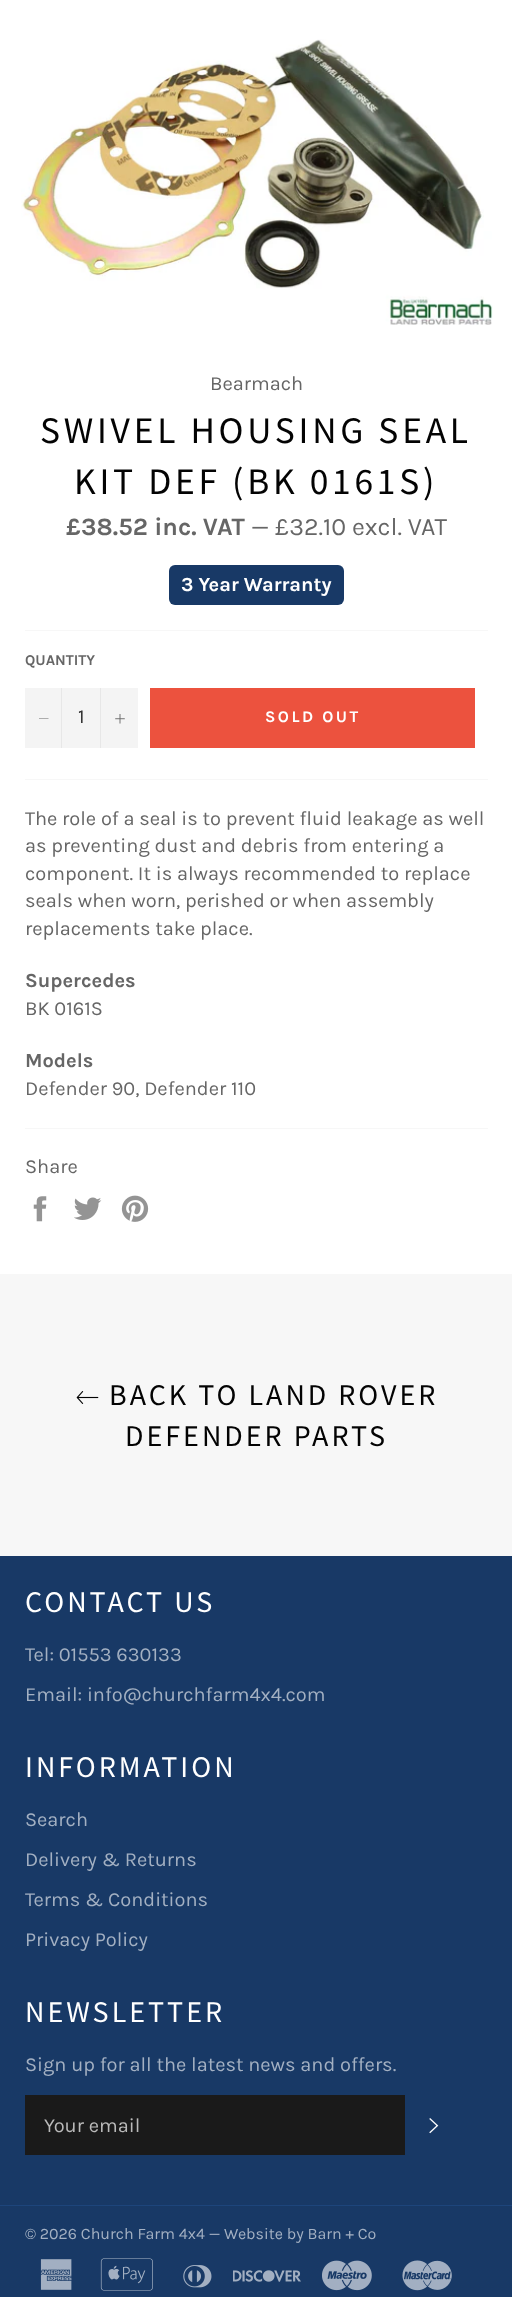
async function draw(canvas) {
	canvas.width = 512;
	canvas.height = 2297;
	const c = canvas.getContext('2d');
	c.miterLimit = 4;
	c.fontKerning = 'normal';
	async function loadImage(src) {
		const img = new Image();
		img.src = src;
		await img.decode();
		return img;
	}

	c.fillStyle = '#fff';
	c.fillRect(0, 0, 512, 2297);
	c.drawImage(await loadImage('img1.png'), 21, 39, 472, 286);
	c.font = '20px Karla';
	c.fillStyle = '#666';
	c.fillText('Bearmach', 210, 390);
	c.letterSpacing = '3.75px';
	c.font = '37.5px Source Sans Pro';
	c.fillStyle = '#030303';
	c.fillText('SWIVEL HOUSING SEAL', 40, 443);
	c.fillText('KIT DEF (BK 0161S)', 74, 494);
	c.letterSpacing = '0px';
	c.font = 'bold 25px Karla';
	c.fillStyle = '#666';
	c.fillText('£38.52 inc. VAT', 66, 535);
	c.font = '25px Karla';
	c.fillText('— £32.10 excl. VAT', 251, 535);
	c.fillStyle = '#183966';
	c.beginPath();
	c.roundRect(169, 565, 175, 40, 6);
	c.fill();
	c.font = 'bold 20px Karla';
	c.fillStyle = '#fff';
	c.fillText('3 Year Warranty', 181, 591);
	c.fillStyle = '#f7f7f7';
	c.fillRect(25, 630, 463, 1);
	c.font = 'bold 15px Karla';
	c.fillStyle = '#666';
	c.fillText('QUANTITY', 25, 665);
	c.fillStyle = '#f4f4f4';
	c.fillRect(25, 688, 113, 60);
	c.fillStyle = '#e7e7e7';
	c.fillRect(61, 688, 1, 60);
	c.fillStyle = '#666';
	c.beginPath();
	c.moveTo(48.5, 718.5);
	c.lineTo(48.5, 719);
	c.lineTo(39, 719);
	c.lineTo(39, 718.5);
	c.closePath();
	c.fill('evenodd');
	c.font = '20px Karla';
	c.fillStyle = '#333';
	c.fillText('1', 78, 723);
	c.fillStyle = '#e7e7e7';
	c.fillRect(100, 688, 1, 60);
	c.drawImage(await loadImage('img2.png'), 115, 714, 10, 10);
	c.fillStyle = '#ec523e';
	c.fillRect(150, 688, 325, 60);
	c.letterSpacing = '2.5px';
	c.font = 'bold 16.25px Karla';
	c.fillStyle = '#fff';
	c.fillText('SOLD OUT', 265, 722);
	c.fillStyle = '#f7f7f7';
	c.fillRect(25, 779, 463, 1);
	c.letterSpacing = '0px';
	c.font = '20px Karla';
	c.fillStyle = '#666';
	for (const [text, x, y] of [
		['The role of a seal is to prevent fluid leakage as well', 25, 825],
		['as preventing dust and debris from entering a', 25, 852],
		['component. It is always recommended to replace', 25, 880],
		['seals when worn, perished or when assembly', 25, 907],
		['replacements take place.', 25, 935],
	]) {
		c.fillText(text, x, y);
	}
	c.font = 'bold 20px Karla';
	c.fillText('Supercedes', 25, 987);
	c.font = '20px Karla';
	c.fillText('BK 0161S', 25, 1015);
	c.font = 'bold 20px Karla';
	c.fillText('Models', 25, 1067);
	c.font = '20px Karla';
	c.fillText('Defender 90, Defender 110', 25, 1095);
	c.fillStyle = '#f7f7f7';
	c.fillRect(25, 1128, 463, 1);
	c.fillStyle = '#666';
	c.fillText('Share', 25, 1173);
	c.drawImage(await loadImage('img3.png'), 33, 1196, 14, 26);
	c.drawImage(await loadImage('img4.png'), 74, 1197, 28, 23);
	c.drawImage(await loadImage('img5.png'), 121, 1195, 28, 27);
	c.fillStyle = '#f7f7f7';
	c.fillRect(0, 1274, 512, 282);
	c.drawImage(await loadImage('img6.png'), 76, 1391, 23, 13);
	c.letterSpacing = '3px';
	c.font = '30px Source Sans Pro';
	c.fillStyle = '#030303';
	c.fillText('BACK TO LAND ROVER', 109, 1405);
	c.fillText('DEFENDER PARTS', 125, 1446);
	c.fillStyle = '#183966';
	c.fillRect(0, 1556, 512, 741);
	c.fillStyle = '#fff';
	c.fillText('CONTACT US', 25, 1612);
	c.letterSpacing = '0px';
	c.font = '20px Karla';
	c.fillStyle = '#a3b0c2';
	c.fillText('Tel: 01553 630133', 25, 1661);
	c.fillText('Email: info@churchfarm4x4.com', 25, 1701);
	c.letterSpacing = '3px';
	c.font = '30px Source Sans Pro';
	c.fillStyle = '#fff';
	c.fillText('INFORMATION', 25, 1777);
	c.letterSpacing = '0px';
	c.font = '20px Karla';
	c.fillStyle = '#a3b0c2';
	for (const [text, x, y] of [
		['Search', 25, 1826],
		['Delivery & Returns', 25, 1866],
		['Terms & Conditions', 25, 1906],
		['Privacy Policy', 25, 1946],
	]) {
		c.fillText(text, x, y);
	}
	c.letterSpacing = '3px';
	c.font = '30px Source Sans Pro';
	c.fillStyle = '#fff';
	c.fillText('NEWSLETTER', 25, 2022);
	c.letterSpacing = '0px';
	c.font = '20px Karla';
	c.fillStyle = '#a3b0c2';
	c.fillText('Sign up for all the latest news and offers.', 25, 2071);
	c.fillStyle = '#1a1a1a';
	c.fillRect(25, 2095, 380, 60);
	c.fillStyle = '#bababa';
	c.fillText('Your email', 44, 2132);
	c.drawImage(await loadImage('img7.png'), 429, 2118, 10, 16);
	c.fillStyle = '#1d457b';
	c.fillRect(0, 2205, 512, 1);
	c.font = '16px Karla';
	c.fillStyle = '#a3b0c2';
	c.fillText('© 2026 Church Farm 4x4 — Website by Barn + Co', 25, 2239);
	c.drawImage(await loadImage('img8.png'), 40, 2259, 32, 31);
	c.drawImage(await loadImage('img9.png'), 100, 2258, 53, 33);
	c.drawImage(await loadImage('img10.png'), 183, 2265, 29, 23);
	c.drawImage(await loadImage('img11.png'), 233, 2270, 68, 12);
	c.drawImage(await loadImage('img12.png'), 322, 2260, 50, 31);
	c.drawImage(await loadImage('img13.png'), 402, 2260, 50, 31);
}

draw(document.querySelector('canvas'));
